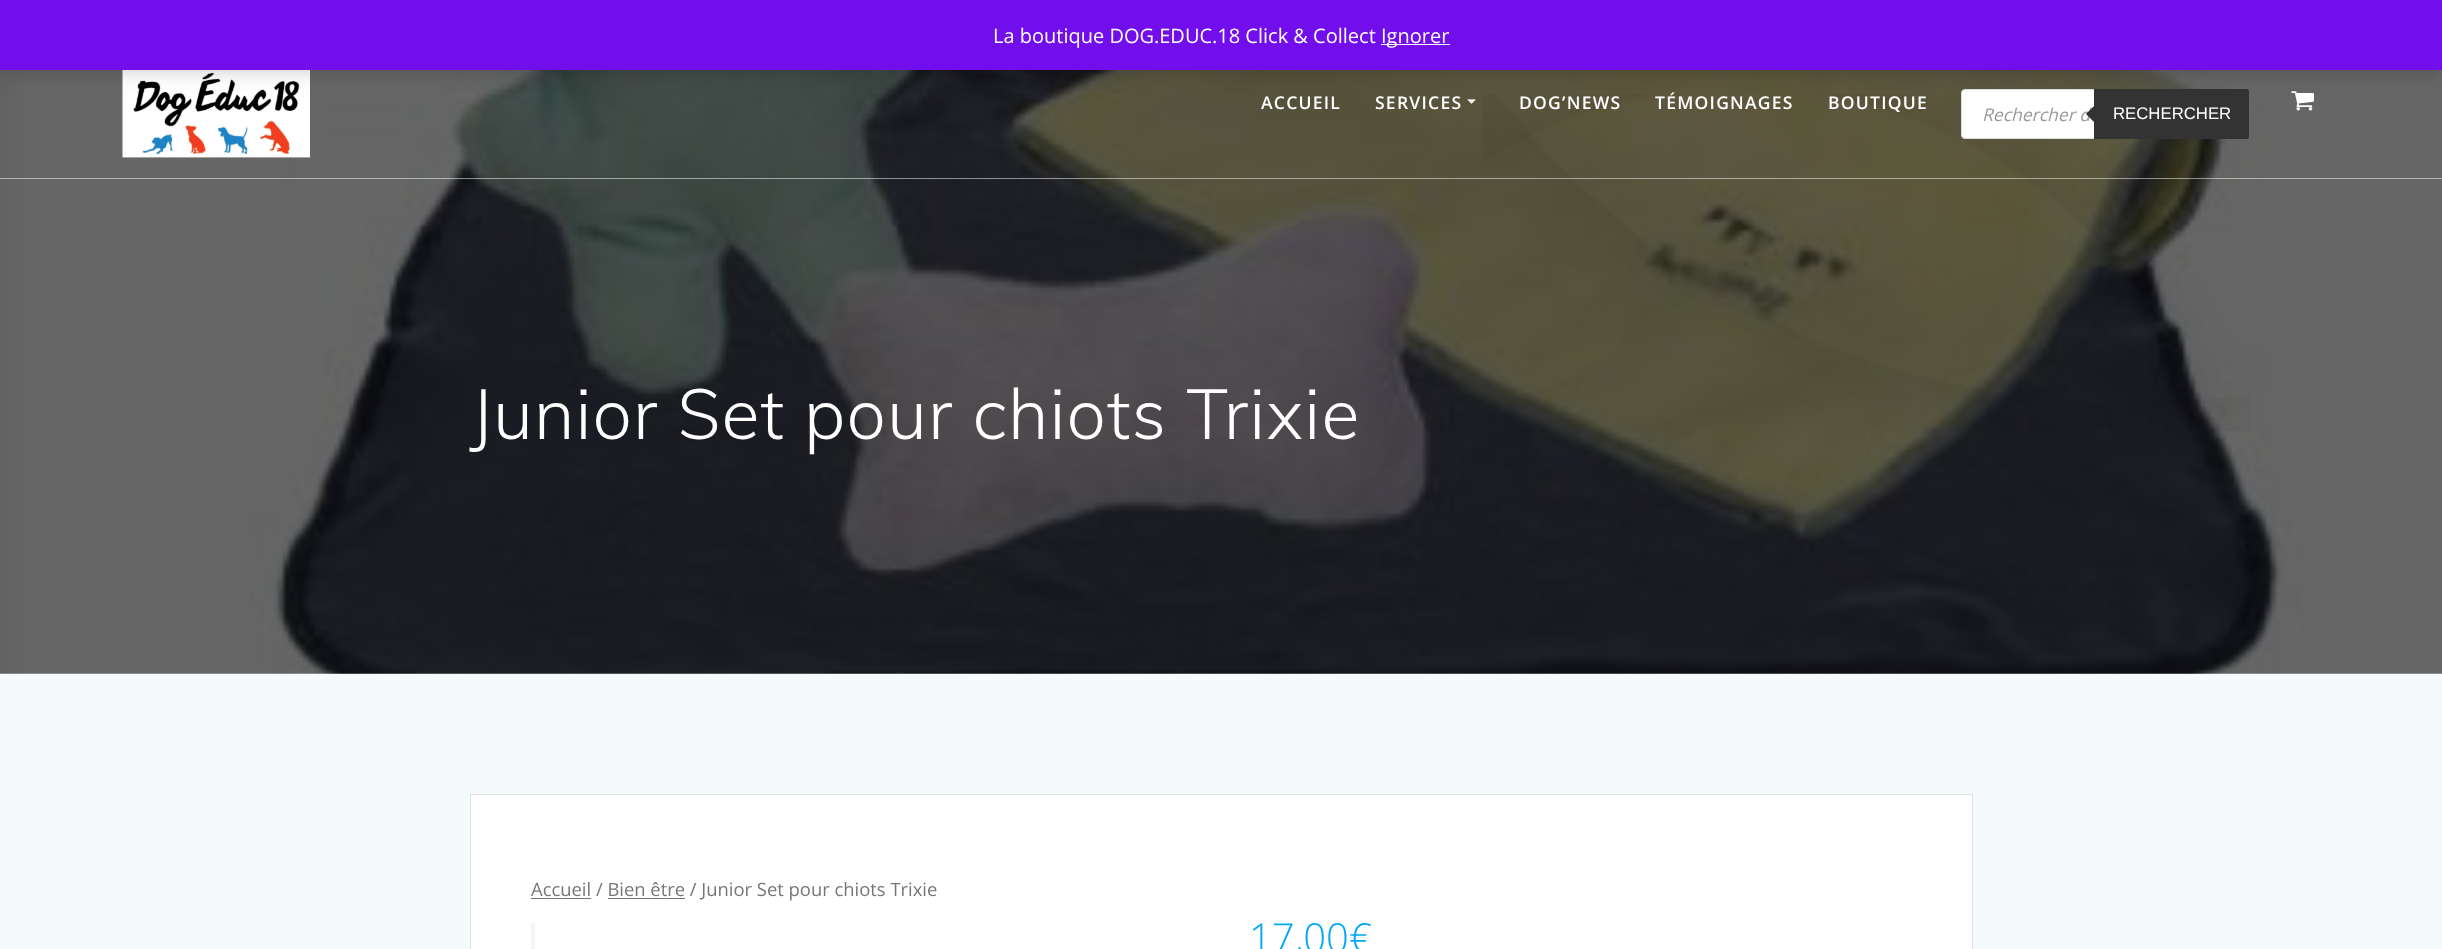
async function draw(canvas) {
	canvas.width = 2442;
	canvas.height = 949;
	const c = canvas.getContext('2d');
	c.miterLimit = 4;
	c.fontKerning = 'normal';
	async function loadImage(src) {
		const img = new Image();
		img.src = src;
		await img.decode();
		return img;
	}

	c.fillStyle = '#f5fafd';
	c.fillRect(0, 0, 2442, 949);
	c.drawImage(await loadImage('img4.png'), 0, 70, 2442, 604);
	c.drawImage(await loadImage('img1.png'), 122, 70, 188, 88);
	c.drawImage(await loadImage('img2.png'), 1467, 99, 9, 5);
	c.drawImage(await loadImage('img3.png'), 2291, 91, 23, 20);
	c.drawImage(await loadImage('img5.png'), 1483, 94, 767, 337);
	c.fillStyle = '#fff';
	c.beginPath();
	c.roundRect(1961.5, 89.5, 287, 49, 3.5);
	c.fill();
	c.strokeStyle = '#ddd';
	c.stroke();
	c.fillStyle = '#333';
	c.beginPath();
	c.roundRect(2094, 89, 155, 50, [0, 2.5, 2.5, 0]);
	c.fill();
	c.fillStyle = '#00000033';
	c.filter = 'blur(10px)';
	c.beginPath();
	c.rect(0, 1, 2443, 70);
	c.fill();
	c.filter = 'none';
	c.fillStyle = '#720eec';
	c.fillRect(0, 0, 2442, 70);
	c.font = '20px Open Sans';
	c.fillStyle = '#fff';
	c.fillText('La boutique DOG.EDUC.18 Click & Collect', 993, 43);
	c.fillStyle = '#fcfbfe';
	c.fillRect(1381, 44, 69, 1);
	c.fillStyle = '#fff';
	c.fillText('Ignorer', 1381, 43);
	c.fillStyle = '#ffffff80';
	c.fillRect(0, 178, 2442, 1);
	c.letterSpacing = '1.25px';
	c.font = '600 17.5px Open Sans';
	c.fillStyle = '#fff';
	for (const [text, x, y] of [
		['ACCUEIL', 1261, 109],
		['SERVICES', 1375, 109],
		['DOG’NEWS', 1519, 109],
		['TÉMOIGNAGES', 1655, 109],
		['BOUTIQUE', 1828, 109],
	]) {
		c.fillText(text, x, y);
	}
	c.letterSpacing = '0px';
	c.font = 'italic 17.5px Open Sans';
	c.fillStyle = '#999';
	c.fillText('Rechercher d', 1982, 121);
	c.fillStyle = '#333';
	c.beginPath();
	c.moveTo(2096, 104);
	c.lineTo(2096, 124);
	c.lineTo(2086, 114);
	c.closePath();
	c.fill();
	c.font = '16.75px Liberation Sans';
	c.fillStyle = '#fff';
	c.fillText('RECHERCHER', 2113, 119);
	c.letterSpacing = '1.1px';
	c.font = '300 70px Muli';
	c.fillText('Junior Set pour chiots Trixie', 470, 439);
	c.beginPath();
	c.rect(470.5, 794.5, 1502, 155);
	c.fill();
	c.strokeStyle = '#e0e1e1';
	c.stroke();
	c.fillStyle = '#767676';
	c.fillRect(531, 898, 60, 1);
	c.letterSpacing = '0px';
	c.font = '18.4px Open Sans';
	c.fillText('Accueil / Bien être / Junior Set pour chiots Trixie', 531, 896);
	c.fillRect(608, 898, 77, 1);
	c.fillStyle = '#f6f6f6';
	c.fillRect(531, 923, 4, 26);
	c.font = '300 40px Open Sans';
	c.fillStyle = '#03a9f4';
	c.fillText('17,00€', 1249, 952);
}

draw(document.querySelector('canvas'));
